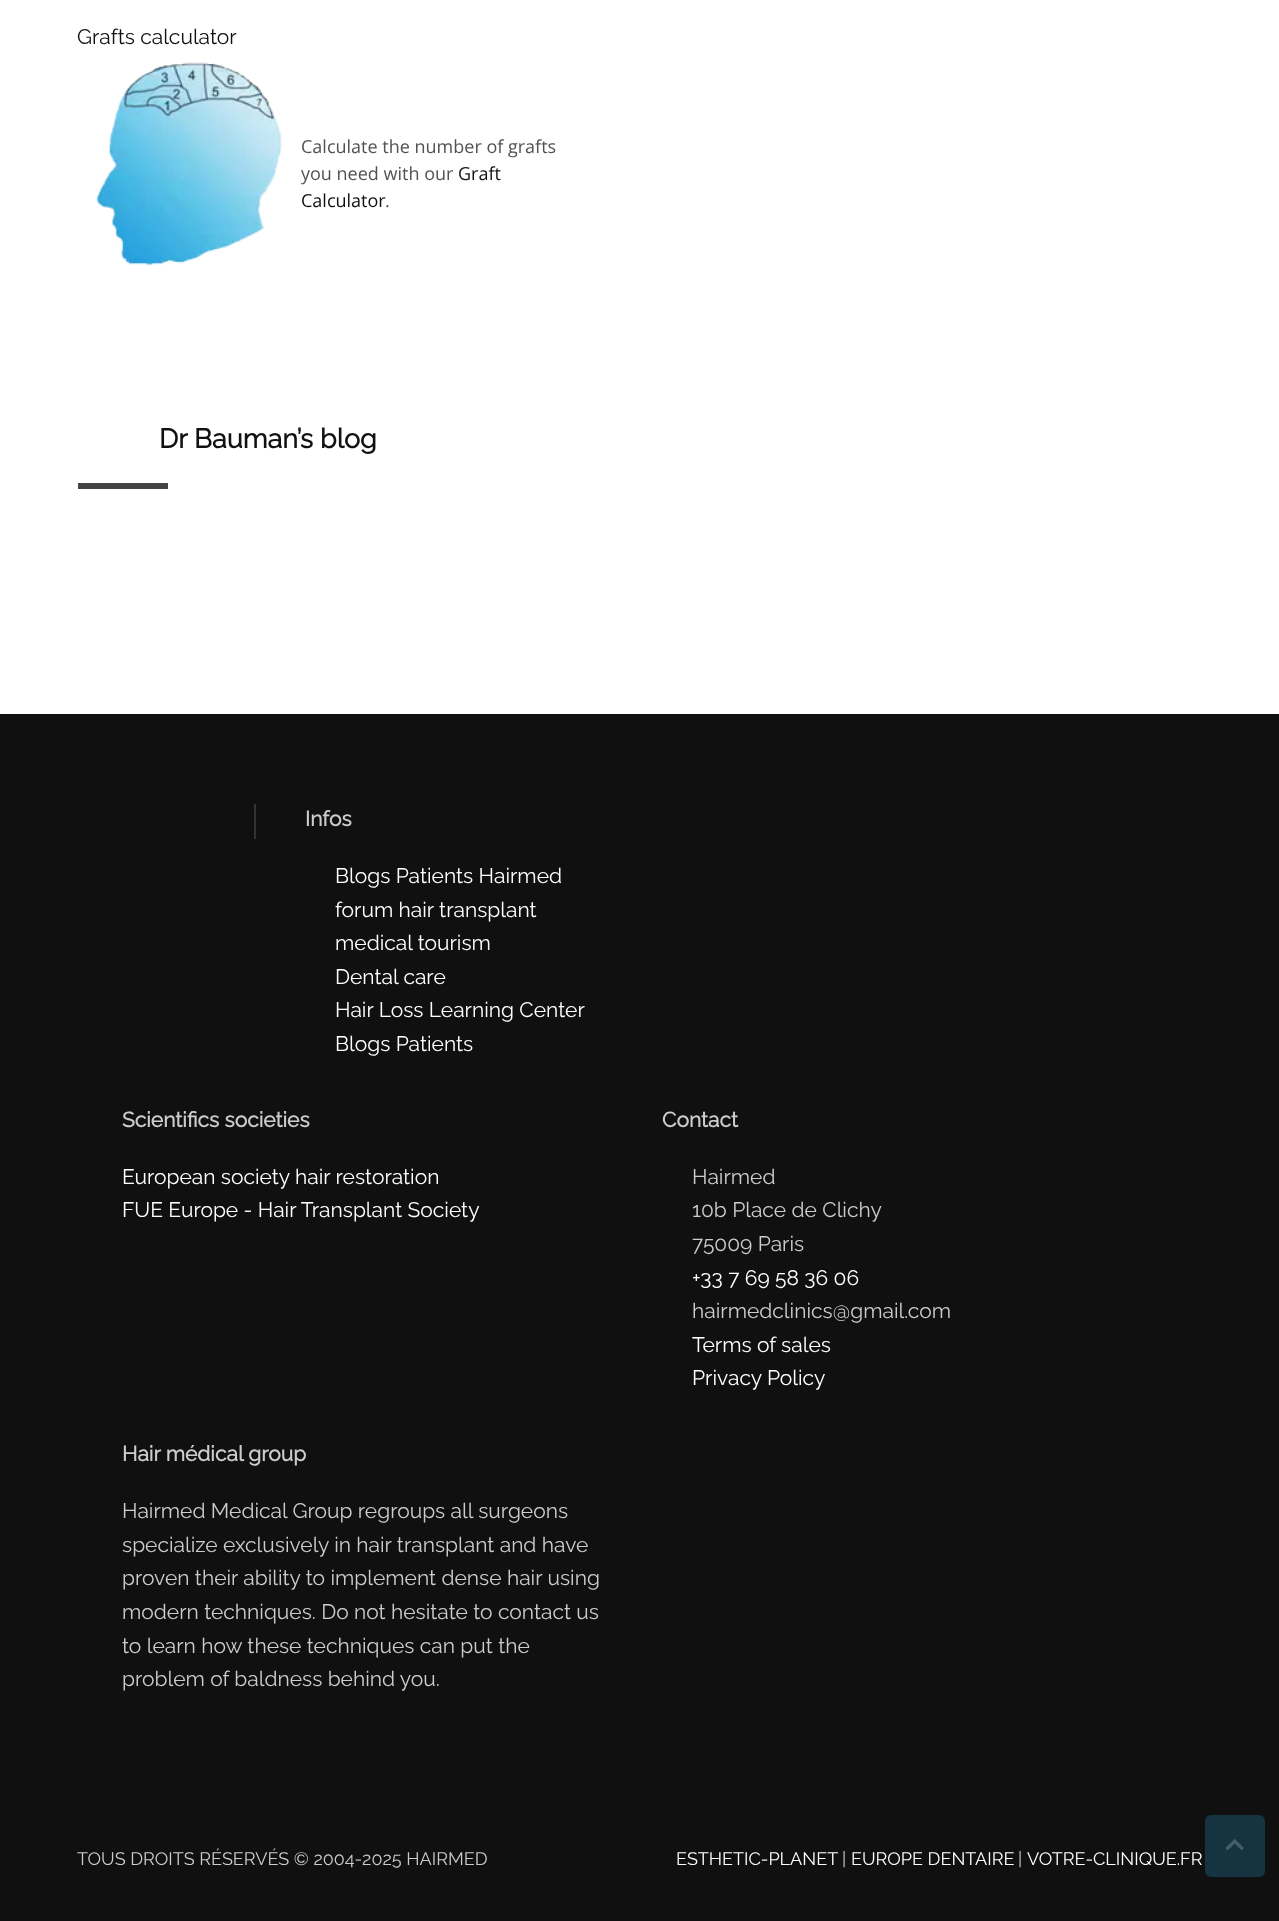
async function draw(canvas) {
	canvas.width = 1279;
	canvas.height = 1921;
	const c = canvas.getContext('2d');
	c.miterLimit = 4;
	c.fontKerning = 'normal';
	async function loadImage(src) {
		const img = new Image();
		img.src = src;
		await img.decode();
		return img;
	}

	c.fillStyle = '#fff';
	c.fillRect(0, 0, 1279, 1921);
	c.font = '100 21px Raleway';
	c.fillStyle = '#111';
	c.fillText('Grafts calculator', 77, 44);
	c.drawImage(await loadImage('img1.png'), 96, 62, 186, 204);
	c.font = '18px Open Sans';
	c.fillStyle = '#535151';
	c.fillText('Calculate the number of grafts', 301, 153);
	c.fillText('you need with our', 301, 180);
	c.fillStyle = '#111';
	c.fillText('Graft', 458, 180);
	c.fillText('Calculator', 301, 207);
	c.fillStyle = '#535151';
	c.fillText('.', 385, 207);
	c.font = 'bold 27px Raleway';
	c.fillStyle = '#111';
	c.fillText('Dr Bauman’s blog', 159, 448);
	for (const [x, y, w, h, color] of [
		[78, 483, 90, 6, '#444'],
		[0, 714, 1279, 1207, '#101010'],
		[254, 804, 2, 35, '#333'],
	]) {
		c.fillStyle = color;
		c.fillRect(x, y, w, h);
	}
	c.font = 'bold 21px Raleway';
	c.fillStyle = '#ccc';
	c.fillText('Infos', 305, 826);
	c.font = '100 21px Raleway';
	c.fillStyle = '#fff';
	for (const [text, x, y] of [
		['Blogs Patients Hairmed', 335, 883],
		['forum hair transplant', 335, 917],
		['medical tourism', 335, 950],
		['Dental care', 335, 984],
		['Hair Loss Learning Center', 335, 1017],
		['Blogs Patients', 335, 1051],
	]) {
		c.fillText(text, x, y);
	}
	c.font = 'bold 21px Raleway';
	c.fillStyle = '#ccc';
	c.fillText('Scientifics societies', 122, 1127);
	c.font = '100 21px Raleway';
	c.fillStyle = '#fff';
	c.fillText('European society hair restoration', 122, 1184);
	c.fillText('FUE Europe - Hair Transplant Society', 122, 1217);
	c.font = 'bold 21px Raleway';
	c.fillStyle = '#ccc';
	c.fillText('Contact', 662, 1127);
	c.font = '100 21px Raleway';
	for (const [text, x, y] of [
		['Hairmed', 692, 1184],
		['10b Place de Clichy', 692, 1217],
		['75009 Paris', 692, 1251],
	]) {
		c.fillText(text, x, y);
	}
	c.fillStyle = '#fff';
	c.fillText('+33 7 69 58 36 06', 692, 1285);
	c.fillStyle = '#ccc';
	c.fillText('hairmedclinics@gmail.com', 692, 1318);
	c.fillStyle = '#fff';
	c.fillText('Terms of sales', 692, 1352);
	c.fillText('Privacy Policy', 692, 1385);
	c.font = 'bold 21px Raleway';
	c.fillStyle = '#ccc';
	c.fillText('Hair médical group', 122, 1461);
	c.font = '100 21px Raleway';
	for (const [text, x, y] of [
		['Hairmed Medical Group regroups all surgeons', 122, 1518],
		['specialize exclusively in hair transplant and have', 122, 1552],
		['proven their ability to implement dense hair using', 122, 1585],
		['modern techniques. Do not hesitate to contact us', 122, 1619],
		['to learn how these techniques can put the', 122, 1653],
		['problem of baldness behind you.', 122, 1686],
	]) {
		c.fillText(text, x, y);
	}
	c.font = '100 18px Raleway';
	c.fillText('TOUS DROITS RÉSERVÉS © 2004-2025 HAIRMED', 77, 1865);
	c.fillStyle = '#fff';
	c.fillText('ESTHETIC-PLANET', 676, 1865);
	c.fillStyle = '#ccc';
	c.fillText('|', 842, 1865);
	c.fillStyle = '#fff';
	c.fillText('EUROPE DENTAIRE', 851, 1865);
	c.fillStyle = '#ccc';
	c.fillText('|', 1018, 1865);
	c.fillStyle = '#fff';
	c.fillText('VOTRE-CLINIQUE.FR', 1027, 1865);
	c.fillStyle = '#153340';
	c.beginPath();
	c.roundRect(1205, 1815, 60, 62, 6);
	c.fill();
	c.drawImage(await loadImage('img2.png'), 1225, 1839, 19, 11);
}

draw(document.querySelector('canvas'));
